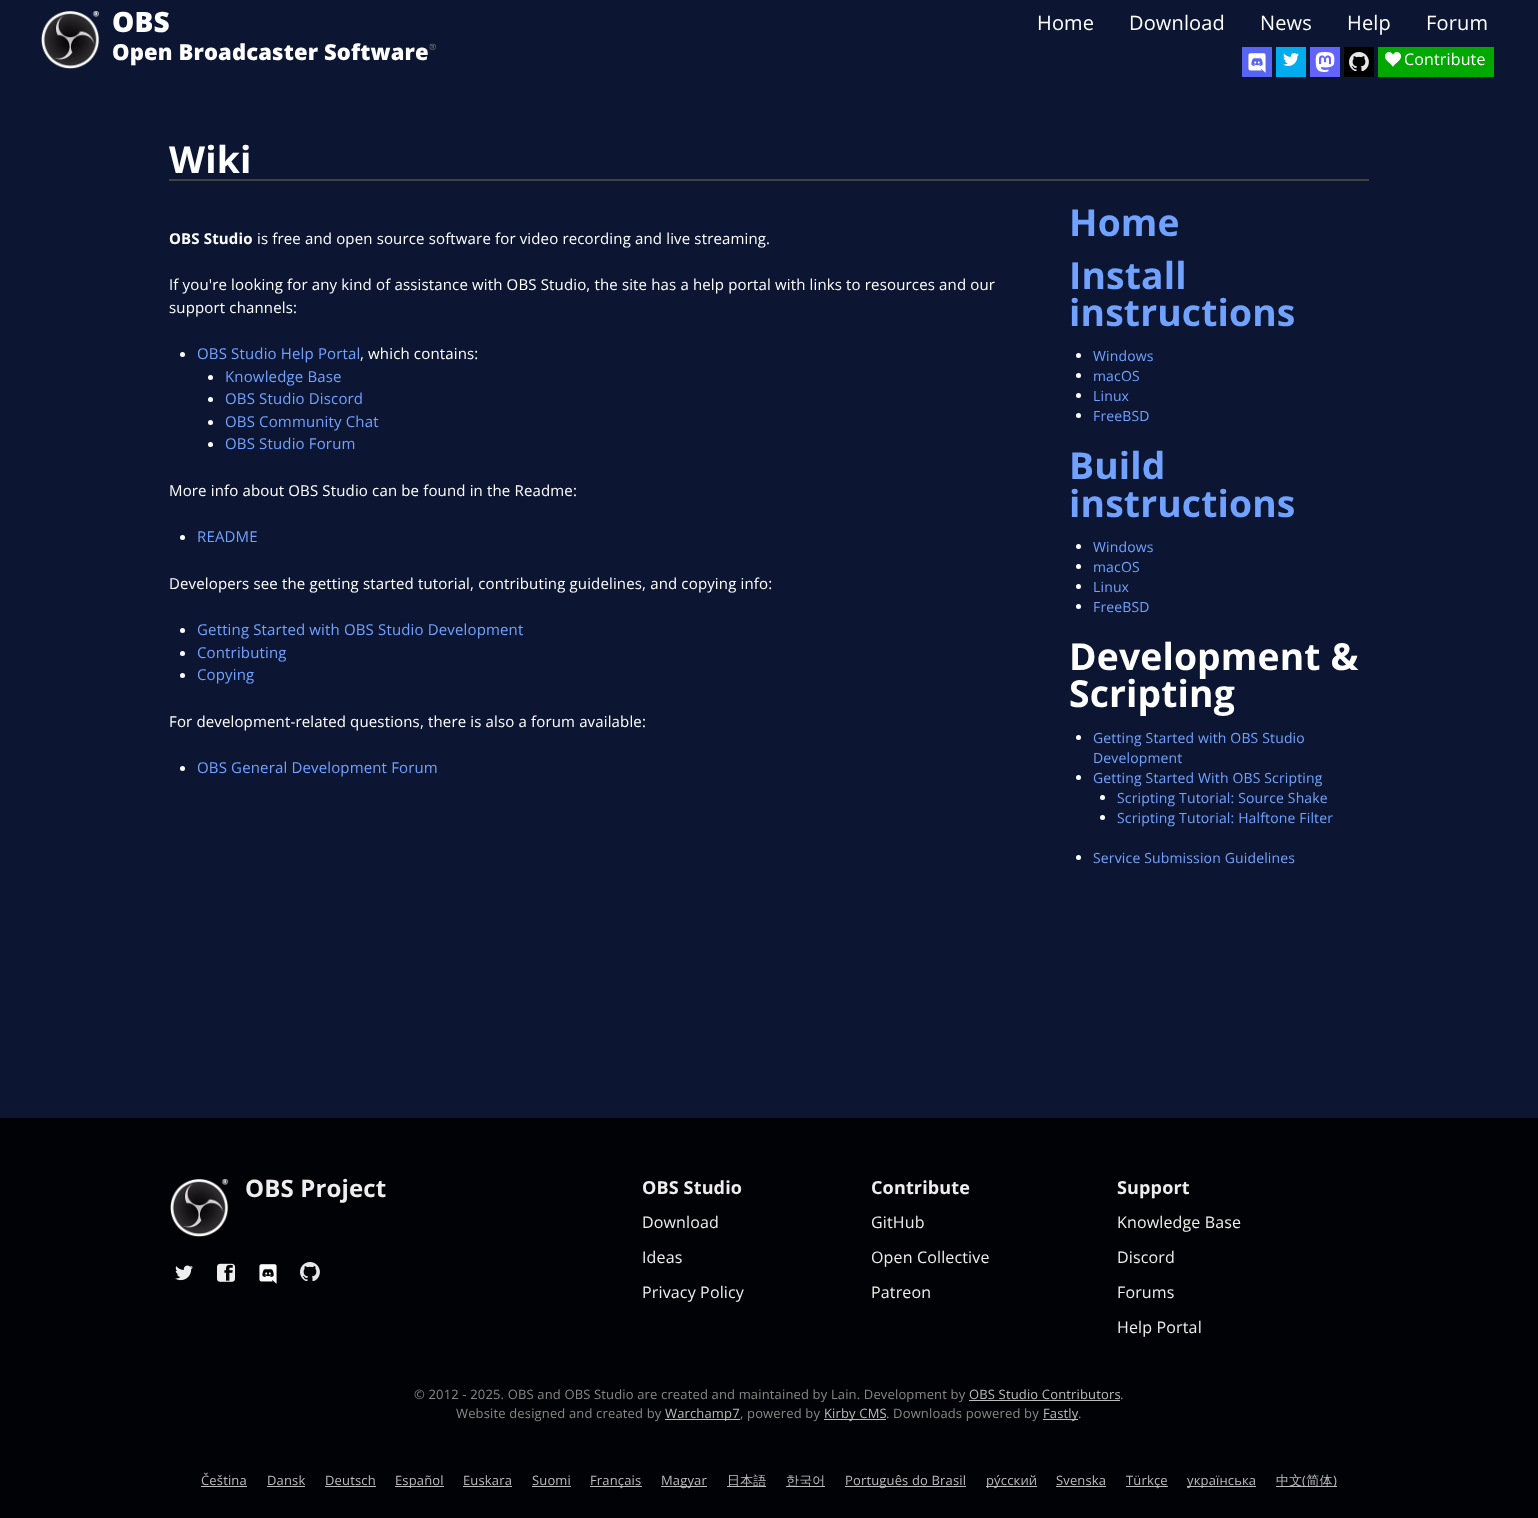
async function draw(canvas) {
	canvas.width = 1538;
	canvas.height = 1518;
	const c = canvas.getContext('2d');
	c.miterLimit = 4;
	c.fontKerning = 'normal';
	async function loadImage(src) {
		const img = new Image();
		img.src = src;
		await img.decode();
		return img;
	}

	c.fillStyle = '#0c1633';
	c.fillRect(0, 0, 1538, 1518);
	c.drawImage(await loadImage('img1.png'), 41, 11, 59, 58);
	c.letterSpacing = '0.15px';
	c.font = '800 28px Open Sans';
	c.fillStyle = '#fff';
	c.fillText('OBS', 112, 32);
	c.font = '800 22px Open Sans';
	c.fillText('Open Broadcaster Software', 112, 60);
	c.font = 'bold 6px Noto Color Emoji';
	c.fillText('®️', 429, 49);
	c.font = '20px Open Sans';
	for (const [text, x, y] of [
		['Home', 1037, 30],
		['Download', 1129, 30],
		['News', 1260, 30],
		['Help', 1347, 30],
		['Forum', 1426, 30],
	]) {
		c.fillText(text, x, y);
	}
	c.fillStyle = '#5865f2';
	c.fillRect(1242, 47, 30, 30);
	c.drawImage(await loadImage('img2.png'), 1248, 53, 18, 20);
	c.fillStyle = '#00acee';
	c.fillRect(1276, 47, 30, 30);
	c.drawImage(await loadImage('img3.png'), 1283, 53, 16, 13);
	c.fillStyle = '#6364ff';
	c.fillRect(1310, 47, 30, 30);
	c.drawImage(await loadImage('img4.png'), 1315, 52, 20, 20);
	c.fillStyle = '#000';
	c.fillRect(1344, 47, 30, 30);
	c.drawImage(await loadImage('img5.png'), 1349, 52, 20, 19);
	c.fillStyle = '#00a800';
	c.fillRect(1378, 47, 116, 30);
	c.drawImage(await loadImage('img6.png'), 1385, 52, 16, 15);
	c.font = '16px Open Sans';
	c.fillStyle = '#fff';
	c.fillText('Contribute', 1404, 65);
	c.fillStyle = '#424242';
	c.fillRect(169, 179, 1200, 2);
	c.font = 'bold 37.25px Open Sans';
	c.fillStyle = '#fff';
	c.fillText('Wiki', 169, 173);
	c.font = 'bold 15px Open Sans';
	c.fillText('OBS Studio', 169, 244);
	c.font = '15px Open Sans';
	for (const [text, x, y] of [
		['is free and open source software for video recording and live streaming.', 257, 244],
		['If you\'re looking for any kind of assistance with OBS Studio, the site has a help portal with links to resources and our', 169, 290],
		['support channels:', 169, 313],
	]) {
		c.fillText(text, x, y);
	}
	c.beginPath();
	c.arc(182.5, 354.5, 2.5, 0, 2 * Math.PI);
	c.fill();
	c.fillStyle = '#72a2ff';
	c.fillText('OBS Studio Help Portal', 197, 359);
	c.fillStyle = '#fff';
	c.fillText(', which contains:', 360, 359);
	c.beginPath();
	c.arc(210.5, 377.5, 2.5, 0, 2 * Math.PI);
	c.fill();
	c.fillStyle = '#72a2ff';
	c.fillText('Knowledge Base', 225, 382);
	c.fillStyle = '#fff';
	c.beginPath();
	c.arc(210.5, 399.5, 2.5, 0, 2 * Math.PI);
	c.fill();
	c.fillStyle = '#72a2ff';
	c.fillText('OBS Studio Discord', 225, 404);
	c.fillStyle = '#fff';
	c.beginPath();
	c.arc(210.5, 422.5, 2.5, 0, 2 * Math.PI);
	c.fill();
	c.fillStyle = '#72a2ff';
	c.fillText('OBS Community Chat', 225, 427);
	c.fillStyle = '#fff';
	c.beginPath();
	c.arc(210.5, 444.5, 2.5, 0, 2 * Math.PI);
	c.fill();
	c.fillStyle = '#72a2ff';
	c.fillText('OBS Studio Forum', 225, 449);
	c.fillStyle = '#fff';
	c.fillText('More info about OBS Studio can be found in the Readme:', 169, 496);
	c.beginPath();
	c.arc(182.5, 537.5, 2.5, 0, 2 * Math.PI);
	c.fill();
	c.fillStyle = '#72a2ff';
	c.fillText('README', 197, 542);
	c.fillStyle = '#fff';
	c.fillText('Developers see the getting started tutorial, contributing guidelines, and copying info:', 169, 589);
	c.beginPath();
	c.arc(182.5, 630.5, 2.5, 0, 2 * Math.PI);
	c.fill();
	c.fillStyle = '#72a2ff';
	c.fillText('Getting Started with OBS Studio Development', 197, 635);
	c.fillStyle = '#fff';
	c.beginPath();
	c.arc(182.5, 653.5, 2.5, 0, 2 * Math.PI);
	c.fill();
	c.fillStyle = '#72a2ff';
	c.fillText('Contributing', 197, 658);
	c.fillStyle = '#fff';
	c.beginPath();
	c.arc(182.5, 675.5, 2.5, 0, 2 * Math.PI);
	c.fill();
	c.fillStyle = '#72a2ff';
	c.fillText('Copying', 197, 680);
	c.fillStyle = '#fff';
	c.fillText('For development-related questions, there is also a forum available:', 169, 727);
	c.beginPath();
	c.arc(182.5, 768.5, 2.5, 0, 2 * Math.PI);
	c.fill();
	c.fillStyle = '#72a2ff';
	c.fillText('OBS General Development Forum', 197, 773);
	c.font = 'bold 37.25px Open Sans';
	for (const [text, x, y] of [
		['Home', 1069, 236],
		['Install', 1069, 289],
		['instructions', 1069, 326],
	]) {
		c.fillText(text, x, y);
	}
	c.fillStyle = '#fff';
	c.beginPath();
	c.arc(1078.5, 355.5, 2.5, 0, 2 * Math.PI);
	c.fill();
	c.font = '14px Open Sans';
	c.fillStyle = '#72a2ff';
	c.fillText('Windows', 1093, 361);
	c.fillStyle = '#fff';
	c.beginPath();
	c.arc(1078.5, 375.5, 2.5, 0, 2 * Math.PI);
	c.fill();
	c.fillStyle = '#72a2ff';
	c.fillText('macOS', 1093, 381);
	c.fillStyle = '#fff';
	c.beginPath();
	c.arc(1078.5, 395.5, 2.5, 0, 2 * Math.PI);
	c.fill();
	c.fillStyle = '#72a2ff';
	c.fillText('Linux', 1093, 401);
	c.fillStyle = '#fff';
	c.beginPath();
	c.arc(1078.5, 415.5, 2.5, 0, 2 * Math.PI);
	c.fill();
	c.fillStyle = '#72a2ff';
	c.fillText('FreeBSD', 1093, 421);
	c.font = 'bold 37.25px Open Sans';
	c.fillText('Build', 1069, 479);
	c.fillText('instructions', 1069, 517);
	c.fillStyle = '#fff';
	c.beginPath();
	c.arc(1078.5, 546.5, 2.5, 0, 2 * Math.PI);
	c.fill();
	c.font = '14px Open Sans';
	c.fillStyle = '#72a2ff';
	c.fillText('Windows', 1093, 552);
	c.fillStyle = '#fff';
	c.beginPath();
	c.arc(1078.5, 566.5, 2.5, 0, 2 * Math.PI);
	c.fill();
	c.fillStyle = '#72a2ff';
	c.fillText('macOS', 1093, 572);
	c.fillStyle = '#fff';
	c.beginPath();
	c.arc(1078.5, 586.5, 2.5, 0, 2 * Math.PI);
	c.fill();
	c.fillStyle = '#72a2ff';
	c.fillText('Linux', 1093, 592);
	c.fillStyle = '#fff';
	c.beginPath();
	c.arc(1078.5, 606.5, 2.5, 0, 2 * Math.PI);
	c.fill();
	c.fillStyle = '#72a2ff';
	c.fillText('FreeBSD', 1093, 612);
	c.font = 'bold 37.25px Open Sans';
	c.fillStyle = '#fff';
	c.fillText('Development &', 1069, 670);
	c.fillText('Scripting', 1069, 707);
	c.beginPath();
	c.arc(1078.5, 737.5, 2.5, 0, 2 * Math.PI);
	c.fill();
	c.font = '14px Open Sans';
	c.fillStyle = '#72a2ff';
	c.fillText('Getting Started with OBS Studio', 1093, 743);
	c.fillText('Development', 1093, 763);
	c.fillStyle = '#fff';
	c.beginPath();
	c.arc(1078.5, 777.5, 2.5, 0, 2 * Math.PI);
	c.fill();
	c.fillStyle = '#72a2ff';
	c.fillText('Getting Started With OBS Scripting', 1093, 783);
	c.fillStyle = '#fff';
	c.beginPath();
	c.arc(1102.5, 797.5, 2.5, 0, 2 * Math.PI);
	c.fill();
	c.fillStyle = '#72a2ff';
	c.fillText('Scripting Tutorial: Source Shake', 1117, 803);
	c.fillStyle = '#fff';
	c.beginPath();
	c.arc(1102.5, 817.5, 2.5, 0, 2 * Math.PI);
	c.fill();
	c.fillStyle = '#72a2ff';
	c.fillText('Scripting Tutorial: Halftone Filter', 1117, 823);
	c.fillStyle = '#fff';
	c.beginPath();
	c.arc(1078.5, 857.5, 2.5, 0, 2 * Math.PI);
	c.fill();
	c.fillStyle = '#72a2ff';
	c.fillText('Service Submission Guidelines', 1093, 863);
	c.fillStyle = '#010205';
	c.fillRect(0, 1118, 1538, 400);
	c.drawImage(await loadImage('img7.png'), 170, 1179, 59, 58);
	c.font = 'bold 24px Open Sans';
	c.fillStyle = '#eee';
	c.fillText('OBS Project', 245, 1197);
	c.drawImage(await loadImage('img8.png'), 175, 1265, 18, 16);
	c.drawImage(await loadImage('img9.png'), 217, 1263, 18, 19);
	c.drawImage(await loadImage('img10.png'), 259, 1264, 18, 20);
	c.drawImage(await loadImage('img11.png'), 300, 1262, 20, 19);
	c.font = 'bold 18px Open Sans';
	c.fillText('OBS Studio', 642, 1194);
	c.font = '16px Open Sans';
	for (const [text, x, y] of [
		['Download', 642, 1228],
		['Ideas', 642, 1263],
		['Privacy Policy', 642, 1298],
	]) {
		c.fillText(text, x, y);
	}
	c.font = 'bold 18px Open Sans';
	c.fillText('Contribute', 871, 1194);
	c.font = '16px Open Sans';
	for (const [text, x, y] of [
		['GitHub', 871, 1228],
		['Open Collective', 871, 1263],
		['Patreon', 871, 1298],
	]) {
		c.fillText(text, x, y);
	}
	c.font = 'bold 18px Open Sans';
	c.fillText('Support', 1117, 1194);
	c.font = '16px Open Sans';
	for (const [text, x, y] of [
		['Knowledge Base', 1117, 1228],
		['Discord', 1117, 1263],
		['Forums', 1117, 1298],
		['Help Portal', 1117, 1333],
	]) {
		c.fillText(text, x, y);
	}
	c.font = '13px Open Sans';
	c.fillStyle = '#888';
	c.fillText('© 2012 - 2025. OBS and OBS Studio are created and maintained by Lain. Development by', 414, 1399);
	c.fillStyle = '#bbb';
	c.fillText('OBS Studio Contributors', 969, 1399);
	c.fillRect(969, 1400, 151, 1);
	c.fillStyle = '#888';
	c.fillText('.', 1120, 1399);
	c.fillText('Website designed and created by', 456, 1418);
	c.fillStyle = '#bbb';
	c.fillRect(665, 1419, 75, 1);
	c.fillText('Warchamp7', 665, 1418);
	c.fillStyle = '#888';
	c.fillText(', powered by', 740, 1418);
	c.fillStyle = '#bbb';
	c.fillRect(824, 1419, 62, 1);
	c.fillText('Kirby CMS', 824, 1418);
	c.fillStyle = '#888';
	c.fillText('. Downloads powered by', 886, 1418);
	c.fillStyle = '#bbb';
	c.fillRect(1043, 1419, 35, 1);
	c.fillText('Fastly', 1043, 1418);
	c.fillStyle = '#888';
	c.fillText('.', 1078, 1418);
	c.fillStyle = '#bbb';
	c.fillText('Čeština', 201, 1485);
	c.fillRect(201, 1486, 46, 1);
	c.fillText('Dansk', 267, 1485);
	c.fillRect(267, 1486, 38, 1);
	c.fillText('Deutsch', 325, 1485);
	c.fillRect(325, 1486, 51, 1);
	c.fillRect(395, 1486, 49, 1);
	c.fillText('Español', 395, 1485);
	c.fillText('Euskara', 463, 1485);
	c.fillRect(463, 1486, 49, 1);
	c.fillText('Suomi', 532, 1485);
	c.fillRect(532, 1486, 39, 1);
	c.fillRect(590, 1486, 52, 1);
	c.fillText('Français', 590, 1485);
	c.fillRect(661, 1486, 46, 1);
	c.fillText('Magyar', 661, 1485);
	c.fillRect(727, 1486, 39, 1);
	c.font = '500 13px WenQuanYi Zen Hei';
	c.fillText('日本語', 727, 1485);
	c.fillRect(786, 1486, 39, 1);
	c.fillText('한국어', 786, 1485);
	c.fillRect(845, 1486, 121, 1);
	c.font = '13px Open Sans';
	c.fillText('Português do Brasil', 845, 1485);
	c.fillRect(986, 1486, 51, 1);
	c.fillText('ру́сский', 986, 1485);
	c.fillText('Svenska', 1056, 1485);
	c.fillRect(1056, 1486, 50, 1);
	c.fillRect(1126, 1486, 42, 1);
	c.fillText('Türkçe', 1126, 1485);
	c.fillRect(1187, 1486, 69, 1);
	c.fillText('українська', 1187, 1485);
	c.fillRect(1276, 1486, 61, 1);
	c.font = '500 13px WenQuanYi Zen Hei';
	c.fillText('中文 简体', 1276, 1485);
	c.font = '13px Open Sans';
	c.fillText('(', 1302, 1485);
	c.fillText(')', 1333, 1485);
}

draw(document.querySelector('canvas'));
